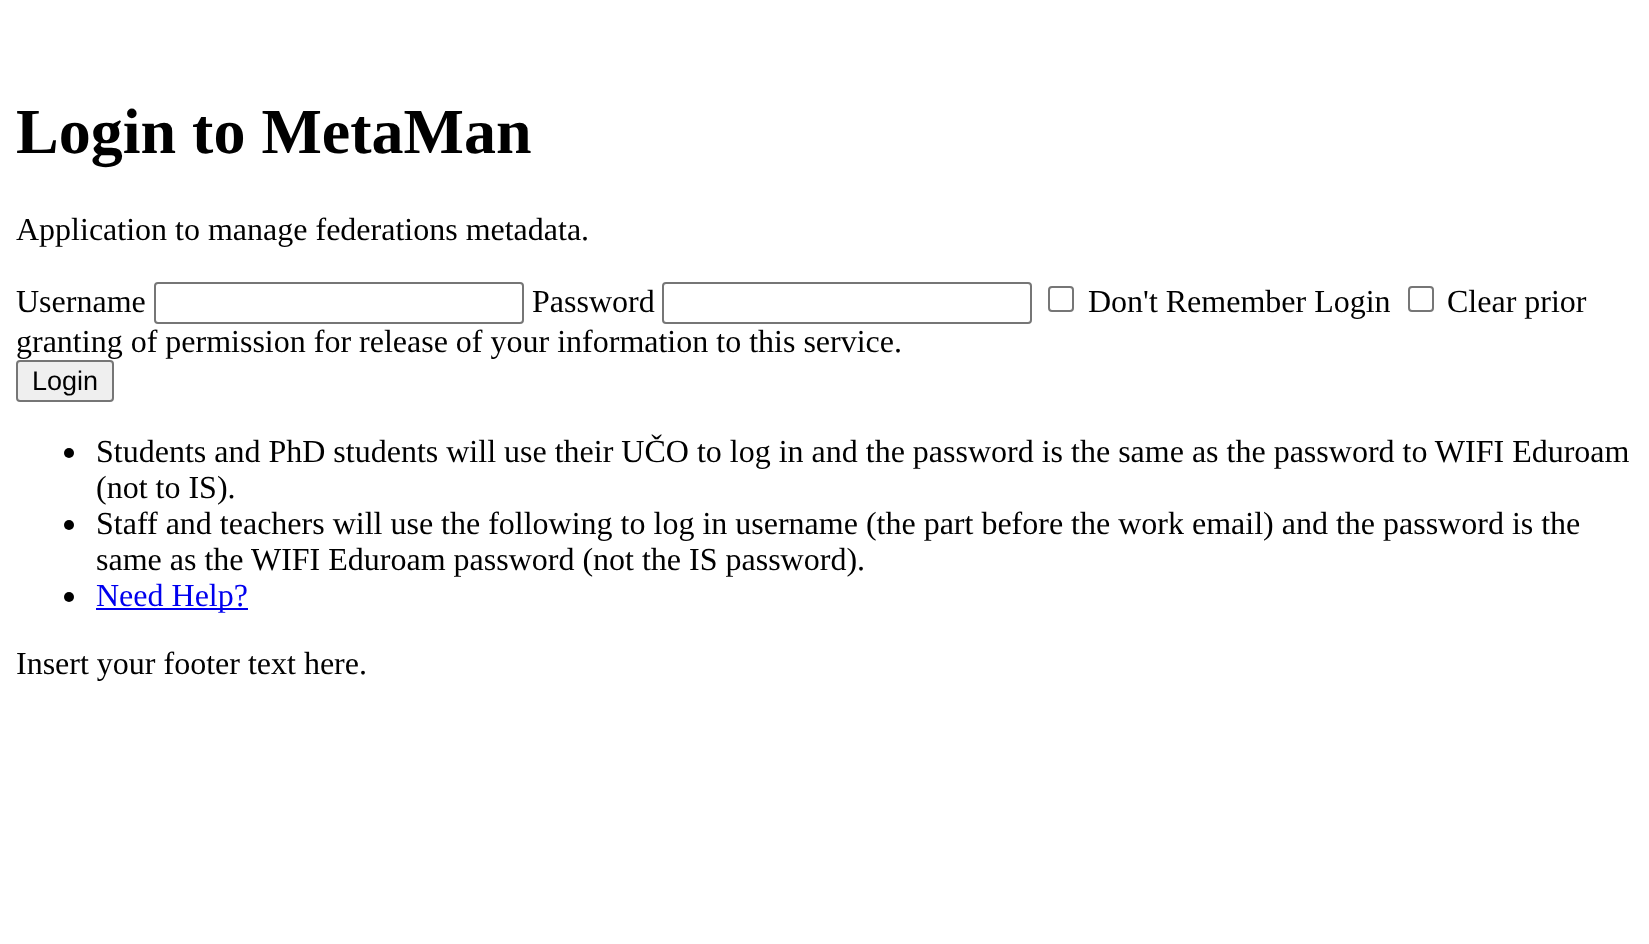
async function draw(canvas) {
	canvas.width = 1649;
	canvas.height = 944;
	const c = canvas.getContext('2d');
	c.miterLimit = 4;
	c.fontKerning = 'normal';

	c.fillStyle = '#fff';
	c.fillRect(0, 0, 1649, 944);
	c.font = 'bold 64px Liberation Serif';
	c.fillStyle = '#000';
	c.fillText('Login to MetaMan', 16, 153);
	c.font = '32px Liberation Serif';
	c.fillText('Application to manage federations metadata.', 16, 240);
	c.fillText('Username', 16, 312);
	c.beginPath();
	c.roundRect(155, 283, 368, 40, 3);
	c.strokeStyle = '#767676';
	c.lineWidth = 2;
	c.stroke();
	c.fillText('Password', 532, 312);
	c.beginPath();
	c.roundRect(663, 283, 368, 40, 3);
	c.stroke();
	c.beginPath();
	c.roundRect(1049, 287, 24, 24, 3);
	c.stroke();
	c.fillText('Don\'t Remember Login', 1088, 312);
	c.beginPath();
	c.roundRect(1409, 287, 24, 24, 3);
	c.stroke();
	c.fillText('Clear prior', 1447, 312);
	c.fillText('granting of permission for release of your information to this service.', 16, 352);
	c.fillStyle = '#efefef';
	c.beginPath();
	c.roundRect(17, 361, 96, 40, 3);
	c.fill();
	c.stroke();
	c.font = '27px Liberation Sans';
	c.fillStyle = '#000';
	c.fillText('Login', 32, 390);
	c.beginPath();
	c.arc(69, 453, 5, 0, 2 * Math.PI);
	c.fill();
	c.font = '32px Liberation Serif';
	c.fillText('Students and PhD students will use their UČO to log in and the password is the same as the password to WIFI Eduroam', 96, 462);
	c.fillText('(not to IS).', 96, 498);
	c.beginPath();
	c.arc(69, 525, 5, 0, 2 * Math.PI);
	c.fill();
	c.fillText('Staff and teachers will use the following to log in username (the part before the work email) and the password is the', 96, 534);
	c.fillText('same as the WIFI Eduroam password (not the IS password).', 96, 570);
	c.beginPath();
	c.arc(69, 597, 5, 0, 2 * Math.PI);
	c.fill();
	c.fillStyle = '#00e';
	c.fillRect(96, 608, 152, 2);
	c.fillText('Need Help?', 96, 606);
	c.fillStyle = '#000';
	c.fillText('Insert your footer text here.', 16, 674);
}

draw(document.querySelector('canvas'));
